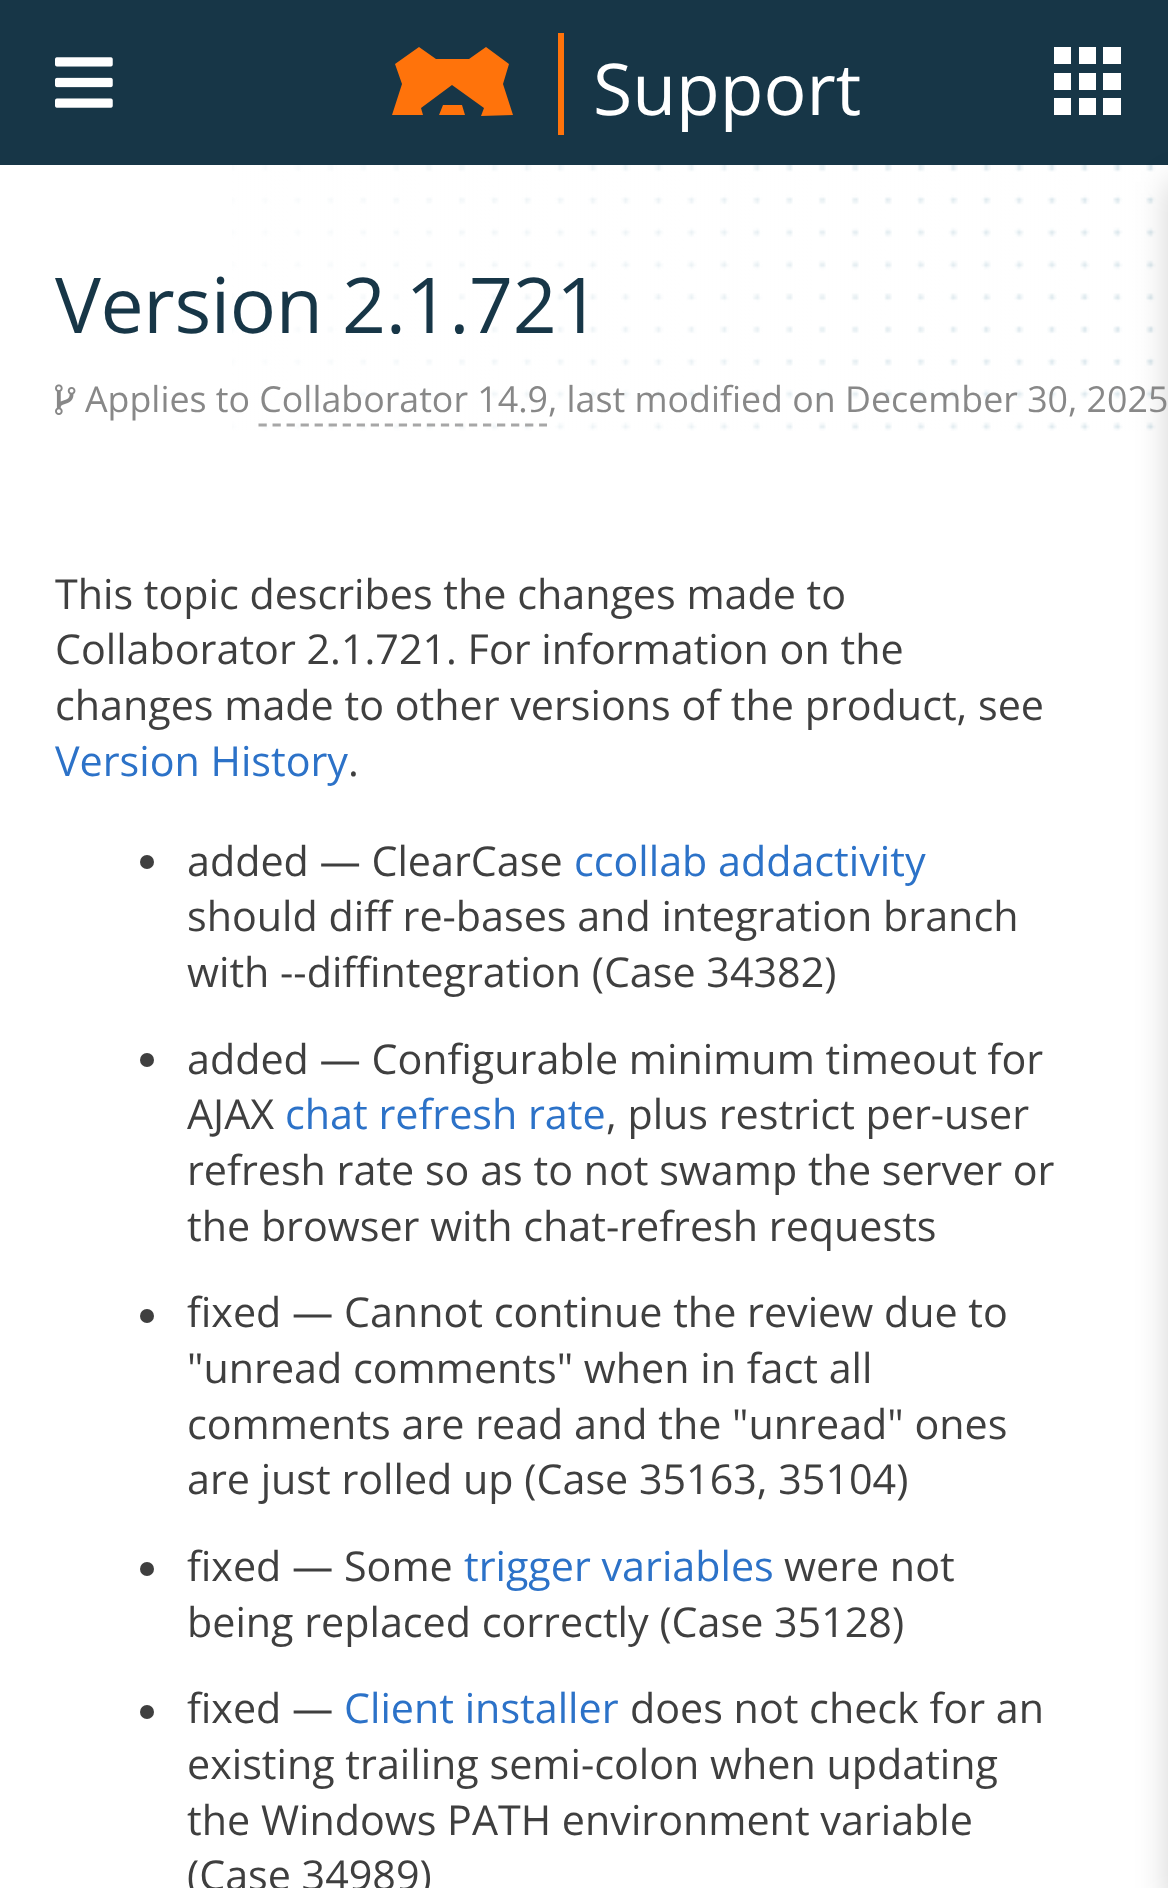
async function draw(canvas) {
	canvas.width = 1168;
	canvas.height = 1888;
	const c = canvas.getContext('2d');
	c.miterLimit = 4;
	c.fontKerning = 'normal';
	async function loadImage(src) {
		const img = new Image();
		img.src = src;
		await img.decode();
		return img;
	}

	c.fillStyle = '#fff';
	c.fillRect(0, 0, 1168, 1888);
	c.fillStyle = '#173647';
	c.fillRect(0, 0, 1168, 165);
	c.drawImage(await loadImage('img1.png'), 55, 57, 58, 51);
	c.fillStyle = '#ff730b';
	c.beginPath();
	c.moveTo(462, 105);
	c.lineTo(443, 105);
	c.lineTo(439, 115);
	c.lineTo(465, 115);
	c.closePath();
	c.moveTo(513, 115);
	c.lineTo(503, 84);
	c.lineTo(509, 64);
	c.lineTo(486, 47);
	c.lineTo(469, 59);
	c.lineTo(436, 59);
	c.lineTo(419, 47);
	c.lineTo(395, 64);
	c.lineTo(402, 84);
	c.lineTo(392, 115);
	c.lineTo(423, 115);
	c.lineTo(421, 108);
	c.lineTo(452, 85);
	c.lineTo(484, 108);
	c.lineTo(481, 116);
	c.closePath();
	c.fill();
	c.fillRect(558, 33, 6, 102);
	c.font = '71.5px Open Sans';
	c.fillStyle = '#fff';
	c.fillText('Support', 593, 115);
	for (const [x, y, w, h, color] of [
		[1054, 47, 17, 17, '#fff'],
		[1079, 47, 17, 17, '#fff'],
		[1103, 47, 18, 17, '#fff'],
		[1054, 73, 17, 17, '#fff'],
		[1079, 73, 17, 17, '#fff'],
		[1103, 73, 18, 17, '#fff'],
		[1054, 98, 17, 17, '#fff'],
		[1079, 98, 17, 17, '#fff'],
		[1103, 98, 18, 17, '#fff'],
	]) {
		c.fillStyle = color;
		c.fillRect(x, y, w, h);
	}
	c.drawImage(await loadImage('img2.png'), 232, 165, 924, 266);
	c.fillStyle = '#0000002e';
	c.filter = 'blur(16.5px)';
	c.beginPath();
	c.rect(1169, 182, 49, 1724);
	c.fill();
	c.filter = 'none';
	c.letterSpacing = '-0.4px';
	c.font = '77px Open Sans';
	c.fillStyle = '#173647';
	c.fillText('Version 2.1.721', 55, 333);
	c.drawImage(await loadImage('img3.png'), 55, 384, 21, 31);
	c.letterSpacing = '0px';
	c.font = '35.75px Open Sans';
	c.fillStyle = '#888';
	c.fillText('Applies to Collaborator 14.9', 85, 412);
	c.fillText(', last modified on December 30, 2025', 548, 412);
	c.beginPath();
	c.moveTo(258.5, 425);
	c.lineTo(547, 425);
	c.strokeStyle = '#a7a7a7';
	c.lineWidth = 2.8;
	c.setLineDash([8.25, 5.78]);
	c.stroke();
	c.font = '41.25px Open Sans';
	c.fillStyle = '#3f3f3f';
	for (const [text, x, y] of [
		['This topic describes the changes made to', 55, 609],
		['Collaborator 2.1.721. For information on the', 55, 664],
		['changes made to other versions of the product, see', 55, 720],
	]) {
		c.fillText(text, x, y);
	}
	c.fillStyle = '#2c72c8';
	c.fillText('Version History', 55, 776);
	c.fillStyle = '#3f3f3f';
	c.fillText('.', 348, 776);
	c.beginPath();
	c.arc(147, 862, 7, 0, 2 * Math.PI);
	c.fill();
	c.fillText('added — ClearCase', 187, 876);
	c.fillStyle = '#2c72c8';
	c.fillText('ccollab addactivity', 574, 876);
	c.fillStyle = '#3f3f3f';
	c.fillText('should diff re-bases and integration branch', 187, 931);
	c.fillText('with --diffintegration (Case 34382)', 187, 987);
	c.beginPath();
	c.arc(147, 1060, 7, 0, 2 * Math.PI);
	c.fill();
	c.fillText('added — Configurable minimum timeout for', 187, 1074);
	c.fillText('AJAX', 187, 1129);
	c.fillStyle = '#2c72c8';
	c.fillText('chat refresh rate', 285, 1129);
	c.fillStyle = '#3f3f3f';
	for (const [text, x, y] of [
		[', plus restrict per-user', 606, 1129],
		['refresh rate so as to not swamp the server or', 187, 1185],
		['the browser with chat-refresh requests', 187, 1241],
	]) {
		c.fillText(text, x, y);
	}
	c.beginPath();
	c.arc(147, 1316, 7, 0, 2 * Math.PI);
	c.fill();
	for (const [text, x, y] of [
		['fixed — Cannot continue the review due to', 187, 1327],
		['"unread comments" when in fact all', 187, 1383],
		['comments are read and the "unread" ones', 187, 1439],
		['are just rolled up (Case 35163, 35104)', 187, 1494],
	]) {
		c.fillText(text, x, y);
	}
	c.beginPath();
	c.arc(147, 1569, 7, 0, 2 * Math.PI);
	c.fill();
	c.fillText('fixed — Some', 187, 1581);
	c.fillStyle = '#2c72c8';
	c.fillText('trigger variables', 464, 1581);
	c.fillStyle = '#3f3f3f';
	c.fillText('were not', 784, 1581);
	c.fillText('being replaced correctly (Case 35128)', 187, 1637);
	c.beginPath();
	c.arc(147, 1712, 7, 0, 2 * Math.PI);
	c.fill();
	c.fillText('fixed —', 187, 1723);
	c.fillStyle = '#2c72c8';
	c.fillText('Client installer', 344, 1723);
	c.fillStyle = '#3f3f3f';
	for (const [text, x, y] of [
		['does not check for an', 630, 1723],
		['existing trailing semi-colon when updating', 187, 1779],
		['the Windows PATH environment variable', 187, 1835],
		['(Case 34989)', 187, 1890],
	]) {
		c.fillText(text, x, y);
	}
}

draw(document.querySelector('canvas'));
